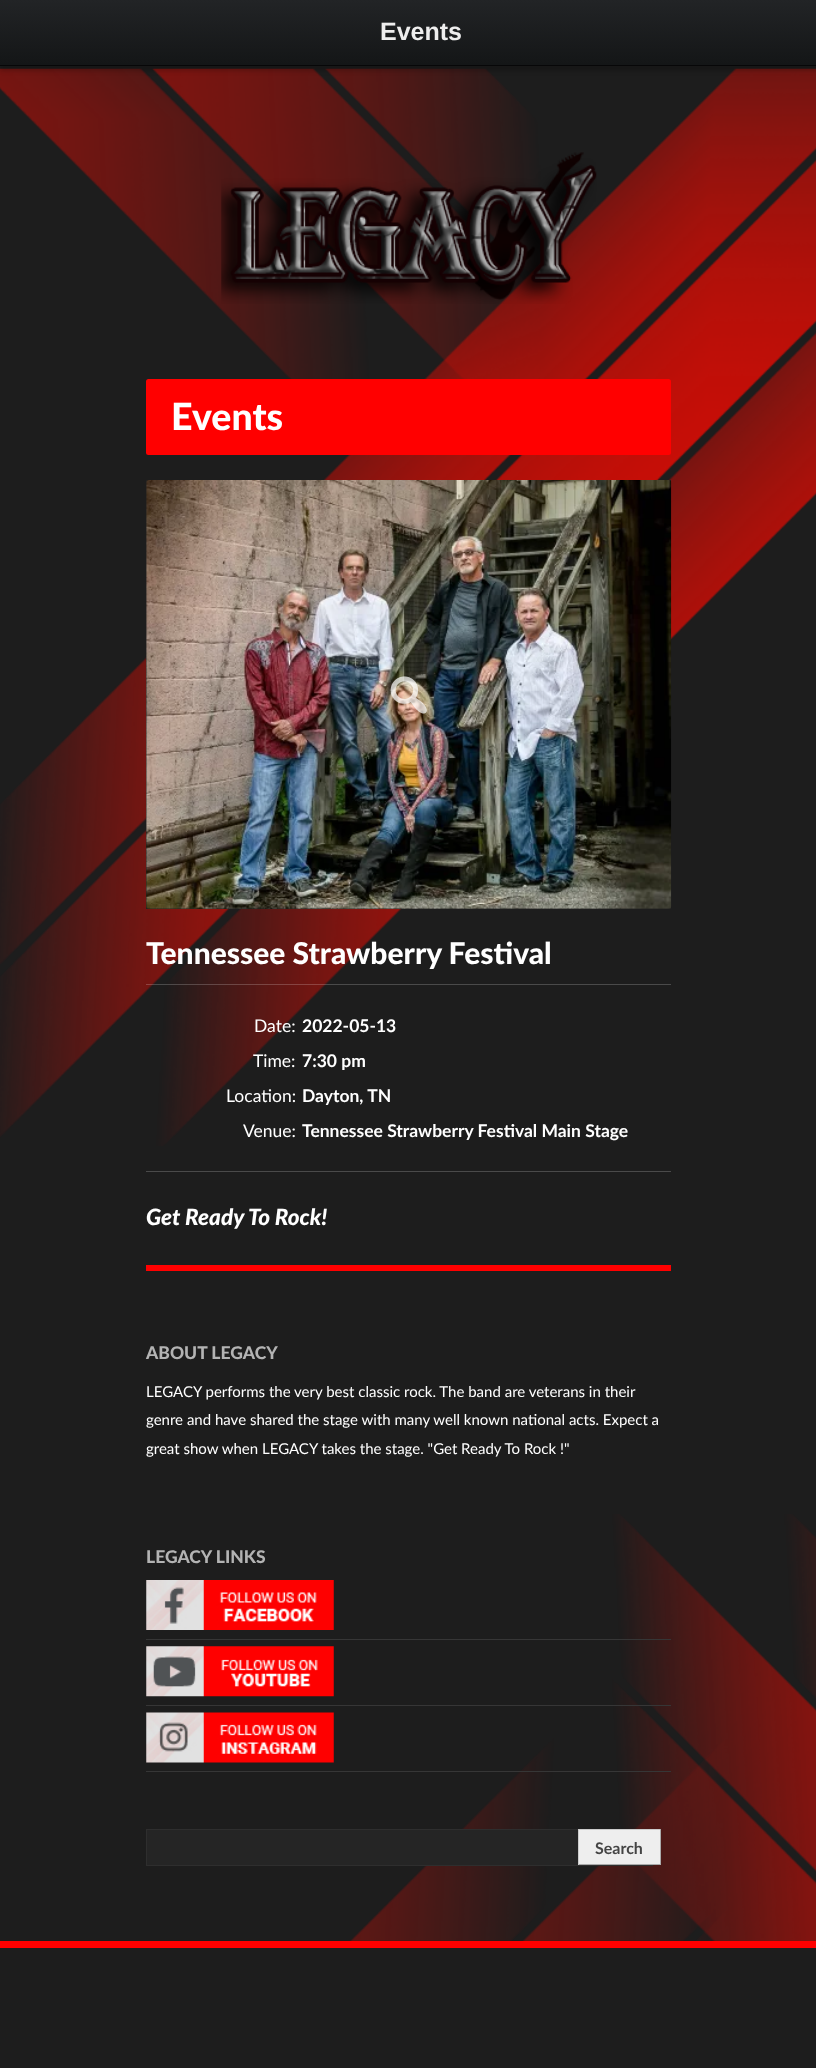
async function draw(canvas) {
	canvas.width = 816;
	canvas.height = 2068;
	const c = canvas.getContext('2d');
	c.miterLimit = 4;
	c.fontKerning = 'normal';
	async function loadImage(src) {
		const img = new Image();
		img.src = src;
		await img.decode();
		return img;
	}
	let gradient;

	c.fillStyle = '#1d1d1d';
	c.fillRect(0, 0, 816, 2068);
	c.fillStyle = '#f00';
	c.fillRect(0, 1941, 816, 7);
	c.drawImage(await loadImage('img1.png'), 0, 68, 816, 1078);
	c.fillStyle = '#00000033';
	c.filter = 'blur(2px)';
	c.beginPath();
	c.rect(0, 5, 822, 66);
	c.fill();
	c.filter = 'none';
	gradient = c.createLinearGradient(0, 65, 0, 0);
	gradient.addColorStop(0.01, '#141617');
	gradient.addColorStop(1, '#222426');
	c.fillStyle = gradient;
	c.fillRect(0, 0, 816, 65);
	c.fillStyle = '#070708';
	c.fillRect(0, 65, 816, 1);
	c.font = 'bold 25px Liberation Sans';
	c.fillStyle = '#eee';
	c.fillText('Events', 380, 40);
	c.drawImage(await loadImage('img2.png'), 221, 152, 376, 152);
	c.fillStyle = '#f00';
	c.beginPath();
	c.roundRect(146, 379, 525, 76, 2.5);
	c.fill();
	c.font = '900 37.5px Lato';
	c.fillStyle = '#fff';
	c.fillText('Events', 171, 430);
	c.fillStyle = '#232323';
	c.fillRect(146, 480, 525, 429);
	c.drawImage(await loadImage('img3.png'), 146, 480, 526, 429);
	c.drawImage(await loadImage('img4.png'), 390, 676, 37, 38);
	c.font = '900 30px Lato';
	c.fillStyle = '#fff';
	c.fillText('Tennessee Strawberry Festival', 146, 964);
	c.fillStyle = '#ffffff33';
	c.fillRect(146, 984, 525, 1);
	c.fillStyle = '#4a4a4a';
	c.fillRect(146, 1171, 525, 1);
	c.font = '17.5px Lato';
	c.fillStyle = '#fff';
	c.fillText('Date:', 254, 1032);
	c.font = 'bold 17.5px Lato';
	c.fillText('2022-05-13', 302, 1032);
	c.font = '17.5px Lato';
	c.fillText('Time:', 253, 1067);
	c.font = 'bold 17.5px Lato';
	c.fillText('7:30 pm', 302, 1067);
	c.font = '17.5px Lato';
	c.fillText('Location:', 226, 1102);
	c.font = 'bold 17.5px Lato';
	c.fillText('Dayton, TN', 302, 1102);
	c.font = '17.5px Lato';
	c.fillText('Venue:', 243, 1137);
	c.font = 'bold 17.5px Lato';
	c.fillText('Tennessee Strawberry Festival Main Stage', 302, 1137);
	c.font = 'italic 900 22.5px Lato';
	c.fillText('Get Ready To Rock!', 146, 1225);
	c.drawImage(await loadImage('img5.png'), 350, 1514, 466, 427);
	c.fillStyle = '#f00';
	c.fillRect(146, 1265, 525, 6);
	c.font = '900 17.5px Lato';
	c.fillStyle = '#b3b3b3';
	c.fillText('ABOUT LEGACY', 146, 1359);
	c.font = '15px Lato';
	c.fillStyle = '#fff';
	for (const [text, x, y] of [
		['LEGACY performs the very best classic rock. The band are veterans in their', 146, 1397],
		['genre and have shared the stage with many well known national acts. Expect a', 146, 1425],
		['great show when LEGACY takes the stage. "Get Ready To Rock !"', 146, 1454],
	]) {
		c.fillText(text, x, y);
	}
	c.font = '900 17.5px Lato';
	c.fillStyle = '#b3b3b3';
	c.fillText('LEGACY LINKS', 146, 1563);
	c.fillStyle = '#363636';
	c.fillRect(146, 1639, 525, 1);
	c.drawImage(await loadImage('img6.png'), 146, 1580, 188, 50);
	c.fillRect(146, 1705, 525, 1);
	c.drawImage(await loadImage('img7.png'), 146, 1646, 188, 51);
	c.fillRect(146, 1771, 525, 1);
	c.drawImage(await loadImage('img8.png'), 146, 1712, 188, 51);
	c.fillStyle = '#252525';
	c.fillRect(147, 1830, 431, 35);
	c.strokeStyle = '#2e2e2e';
	c.strokeRect(146.5, 1829.5, 506, 36);
	for (const [x, y, w, h, color] of [
		[579, 1830, 81, 34, '#eee'],
		[578, 1829, 83, 1, '#ccc'],
		[660, 1829, 1, 36, '#aaa'],
		[578, 1864, 83, 1, '#aaa'],
		[578, 1829, 1, 36, '#ccc'],
	]) {
		c.fillStyle = color;
		c.fillRect(x, y, w, h);
	}
	c.font = 'bold 16px Lato';
	c.fillStyle = '#444';
	c.fillText('Search', 595, 1854);
}

draw(document.querySelector('canvas'));
